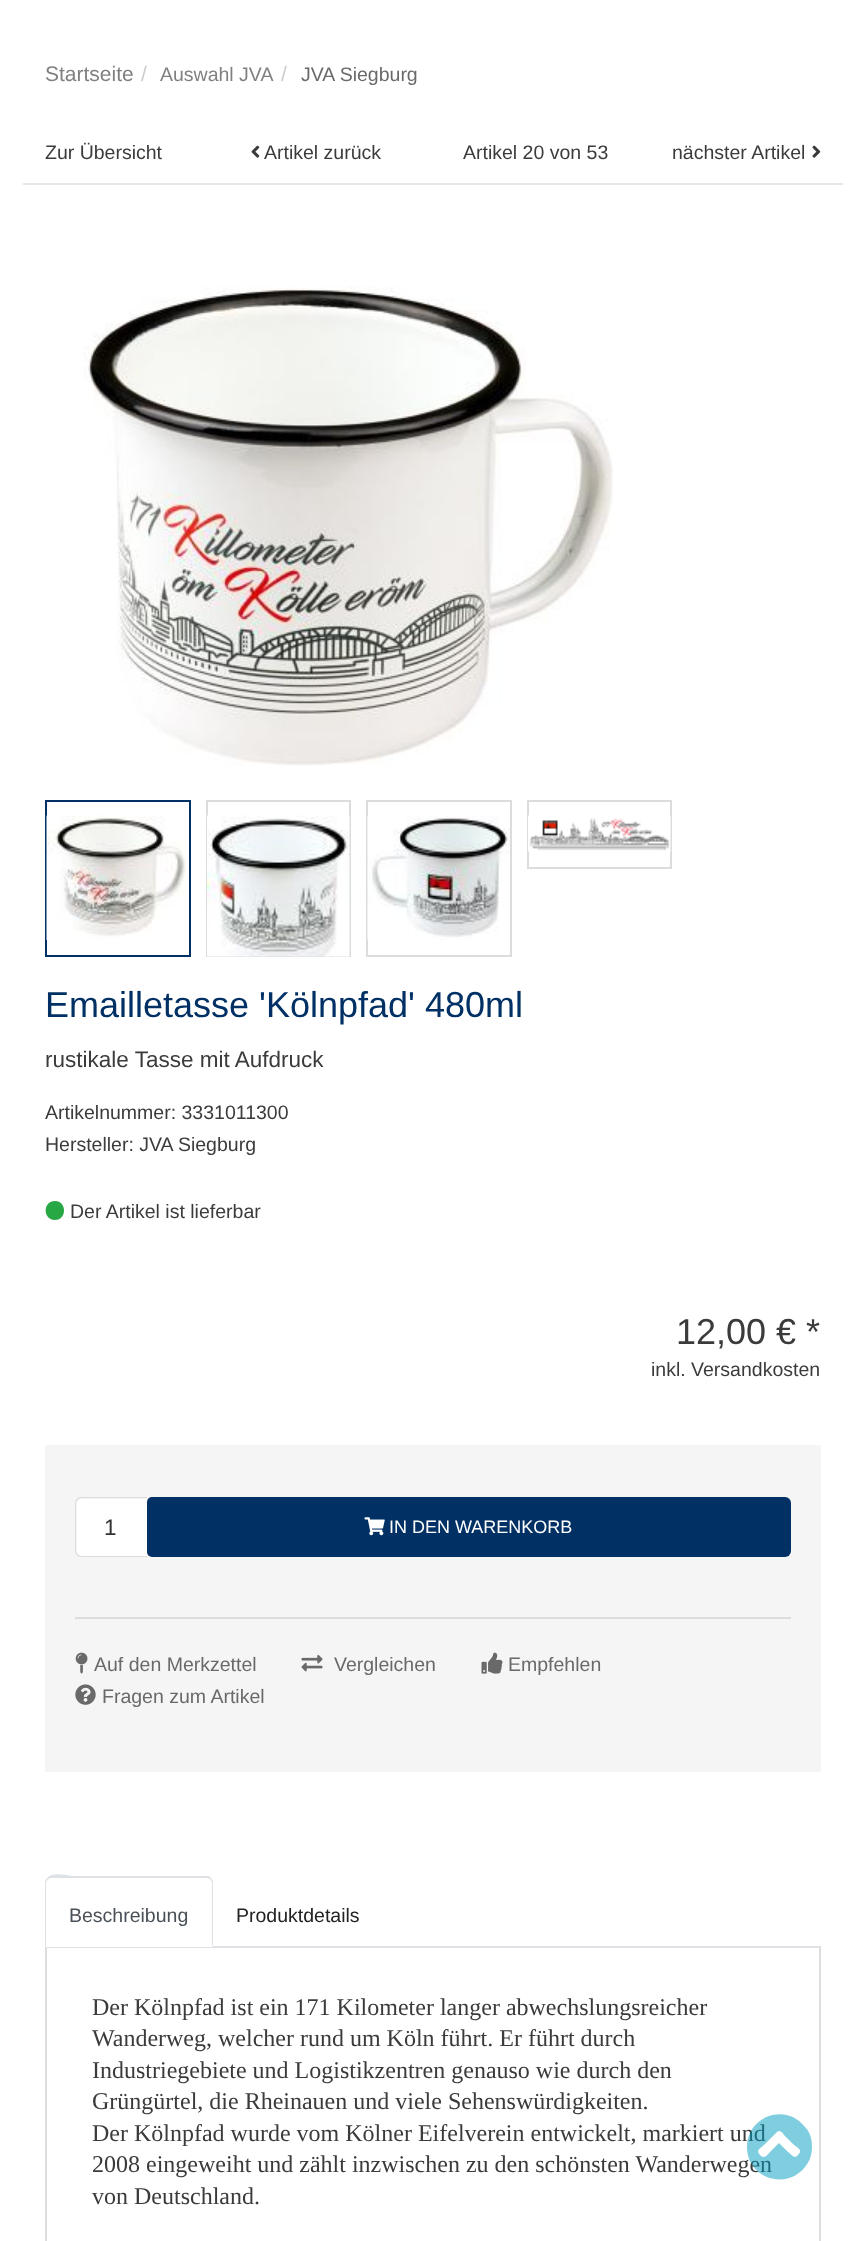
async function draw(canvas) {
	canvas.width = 865;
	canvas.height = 2241;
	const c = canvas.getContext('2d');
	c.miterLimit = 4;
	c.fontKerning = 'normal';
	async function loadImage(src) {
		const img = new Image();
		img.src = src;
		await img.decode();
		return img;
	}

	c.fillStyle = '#fff';
	c.fillRect(0, 0, 865, 2241);
	c.font = '21px Liberation Sans';
	c.fillStyle = '#808080';
	c.fillText('Startseite', 45, 81);
	c.fillStyle = '#ccc';
	c.fillText('/', 141, 81);
	c.font = '19.5px Liberation Sans';
	c.fillStyle = '#808080';
	c.fillText('Auswahl JVA', 160, 81);
	c.font = '21px Liberation Sans';
	c.fillStyle = '#ccc';
	c.fillText('/', 281, 81);
	c.font = '19.5px Liberation Sans';
	c.fillStyle = '#696969';
	c.fillText('JVA Siegburg', 301, 81);
	c.fillStyle = '#e7e7e7';
	c.fillRect(23, 183, 820, 2);
	c.fillStyle = '#3b3b3b';
	c.fillText('Zur Übersicht', 45, 159);
	c.drawImage(await loadImage('img1.png'), 251, 145, 9, 13);
	for (const [text, x, y] of [
		['Artikel zurück', 264, 159],
		['Artikel 20 von 53', 463, 159],
		['nächster Artikel', 672, 159],
	]) {
		c.fillText(text, x, y);
	}
	c.drawImage(await loadImage('img2.png'), 812, 145, 9, 13);
	c.drawImage(await loadImage('img3.png'), 83, 286, 530, 480);
	c.strokeStyle = '#003064';
	c.lineWidth = 2;
	c.strokeRect(46, 801, 144, 155);
	c.drawImage(await loadImage('img4.png'), 46, 815, 143, 125);
	c.strokeStyle = '#dcdcdc';
	c.strokeRect(207, 801, 143, 155);
	c.drawImage(await loadImage('img5.png'), 207, 815, 143, 142);
	c.strokeRect(367, 801, 144, 155);
	c.drawImage(await loadImage('img6.png'), 367, 815, 143, 125);
	c.strokeRect(528, 801, 143, 67);
	c.drawImage(await loadImage('img7.png'), 528, 815, 143, 37);
	c.font = '36px Liberation Sans';
	c.fillStyle = '#003064';
	c.fillText('Emailletasse \'Kölnpfad\' 480ml', 45, 1017);
	c.font = '22.5px Liberation Sans';
	c.fillStyle = '#3b3b3b';
	c.fillText('rustikale Tasse mit Aufdruck', 45, 1067);
	c.font = '19.5px Liberation Sans';
	c.fillText('Artikelnummer: 3331011300', 45, 1119);
	c.fillText('Hersteller: JVA Siegburg', 45, 1151);
	c.fillStyle = '#28a745';
	c.beginPath();
	c.moveTo(55, 1201);
	c.bezierCurveTo(42.5, 1201, 42.5, 1220, 55, 1220);
	c.bezierCurveTo(67, 1220, 67, 1201, 55, 1201);
	c.closePath();
	c.fill();
	c.fillStyle = '#3b3b3b';
	c.fillText('Der Artikel ist lieferbar', 70, 1218);
	c.font = '36px Liberation Sans';
	c.fillText('12,00 € *', 676, 1344);
	c.font = '19.5px Liberation Sans';
	c.fillText('inkl. Versandkosten', 651, 1376);
	c.fillStyle = '#f5f5f5';
	c.fillRect(45, 1445, 776, 327);
	c.fillStyle = '#fff';
	c.beginPath();
	c.roundRect(77, 1499, 70, 57, [5, 0, 0, 5]);
	c.fill();
	c.fillStyle = '#dcdcdc';
	c.beginPath();
	c.moveTo(81, 1497);
	c.lineTo(147, 1497);
	c.lineTo(147, 1557);
	c.lineTo(81, 1557);
	c.bezierCurveTo(78, 1557, 75, 1554, 75, 1551);
	c.lineTo(75, 1503);
	c.bezierCurveTo(75, 1500, 78, 1497, 81, 1497);
	c.closePath();
	c.moveTo(81, 1498);
	c.lineTo(147, 1498);
	c.lineTo(147, 1556);
	c.lineTo(81, 1556);
	c.bezierCurveTo(79, 1556, 76, 1553, 76, 1551);
	c.lineTo(76, 1503);
	c.bezierCurveTo(76, 1501, 79, 1498, 81, 1498);
	c.closePath();
	c.fill('evenodd');
	c.font = '22.5px Liberation Sans';
	c.fillStyle = '#333';
	c.fillText('1', 104, 1535);
	c.fillStyle = '#003064';
	c.beginPath();
	c.roundRect(147, 1497, 644, 60, [5, 6, 6, 5]);
	c.fill();
	c.drawImage(await loadImage('img8.png'), 364, 1517, 21, 19);
	c.font = '18px Liberation Sans';
	c.fillStyle = '#fff';
	c.fillText('IN DEN WARENKORB', 389, 1533);
	c.fillStyle = '#dcdcdc';
	c.fillRect(75, 1617, 716, 2);
	c.drawImage(await loadImage('img9.png'), 75, 1652, 13, 22);
	c.font = '19.5px Liberation Sans';
	c.fillStyle = '#696969';
	c.fillText('Auf den Merkzettel', 94, 1671);
	c.drawImage(await loadImage('img10.png'), 301, 1654, 22, 18);
	c.fillText('Vergleichen', 334, 1671);
	c.drawImage(await loadImage('img11.png'), 481, 1652, 22, 22);
	c.fillText('Empfehlen', 508, 1671);
	c.drawImage(await loadImage('img12.png'), 75, 1684, 21, 21);
	c.fillText('Fragen zum Artikel', 102, 1703);
	c.fillStyle = '#dee2e6';
	c.fillRect(45, 1946, 776, 2);
	c.fillStyle = '#fff';
	c.beginPath();
	c.roundRect(45, 1877, 168, 70, [6, 6, 0, 0]);
	c.fill();
	c.fillStyle = '#dee2e6';
	c.beginPath();
	c.moveTo(51, 1878);
	c.lineTo(48, 1879);
	c.lineTo(47, 1878);
	c.bezierCurveTo(53, 1871, 66, 1876, 76, 1876);
	c.lineTo(209, 1876);
	c.lineTo(211, 1878);
	c.lineTo(210, 1879);
	c.lineTo(207, 1878);
	c.closePath();
	c.fill();
	c.beginPath();
	c.moveTo(213, 1947);
	c.lineTo(213, 1882);
	c.bezierCurveTo(213, 1881, 212, 1879, 211, 1878);
	c.lineTo(210, 1879);
	c.lineTo(212, 1882);
	c.lineTo(212, 1946);
	c.closePath();
	c.fill();
	c.fillStyle = '#fff';
	c.beginPath();
	c.moveTo(213, 1947);
	c.lineTo(212, 1946);
	c.lineTo(46, 1946);
	c.lineTo(45, 1947);
	c.closePath();
	c.fill();
	c.fillStyle = '#dee2e6';
	c.beginPath();
	c.moveTo(45, 1947);
	c.lineTo(46, 1946);
	c.lineTo(46, 1882);
	c.lineTo(48, 1879);
	c.lineTo(47, 1878);
	c.bezierCurveTo(46, 1879, 45, 1881, 45, 1882);
	c.closePath();
	c.fill();
	c.fillStyle = '#495057';
	c.fillText('Beschreibung', 69, 1922);
	c.fillStyle = '#222';
	c.fillText('Produktdetails', 236, 1922);
	c.fillStyle = '#ddd';
	c.fillRect(819, 1947, 2, 294);
	c.fillRect(45, 1947, 2, 294);
	c.font = '24px Liberation Serif';
	c.fillStyle = '#3b3b3b';
	for (const [text, x, y] of [
		['Der Kölnpfad ist ein 171 Kilometer langer abwechslungsreicher', 92, 2015],
		['Wanderweg, welcher rund um Köln führt. Er führt durch', 92, 2046],
		['Industriegebiete und Logistikzentren genauso wie durch den', 92, 2078],
		['Grüngürtel, die Rheinauen und viele Sehenswürdigkeiten.', 92, 2109],
		['Der Kölnpfad wurde vom Kölner Eifelverein entwickelt, markiert und', 92, 2141],
		['2008 eingeweiht und zählt inzwischen zu den schönsten Wanderwegen', 92, 2172],
		['von Deutschland.', 92, 2204],
	]) {
		c.fillText(text, x, y);
	}
	c.fillStyle = '#009ec080';
	c.beginPath();
	c.moveTo(747, 2147);
	c.bezierCurveTo(747, 2116, 786, 2102, 805, 2127);
	c.bezierCurveTo(810, 2132, 812, 2139, 812, 2147);
	c.bezierCurveTo(812, 2154, 810, 2161, 805, 2167);
	c.bezierCurveTo(786, 2191, 747, 2178, 747, 2147);
	c.closePath();
	c.moveTo(777, 2132);
	c.lineTo(765, 2144);
	c.bezierCurveTo(759, 2150, 755, 2150, 761, 2156);
	c.bezierCurveTo(765, 2159, 768, 2154, 770, 2152);
	c.lineTo(779, 2143);
	c.lineTo(788, 2152);
	c.bezierCurveTo(790, 2153, 794, 2159, 797, 2156);
	c.bezierCurveTo(803, 2150, 800, 2150, 793, 2144);
	c.lineTo(784, 2135);
	c.bezierCurveTo(783, 2133, 780, 2129, 777, 2132);
	c.closePath();
	c.fill();
}

draw(document.querySelector('canvas'));
